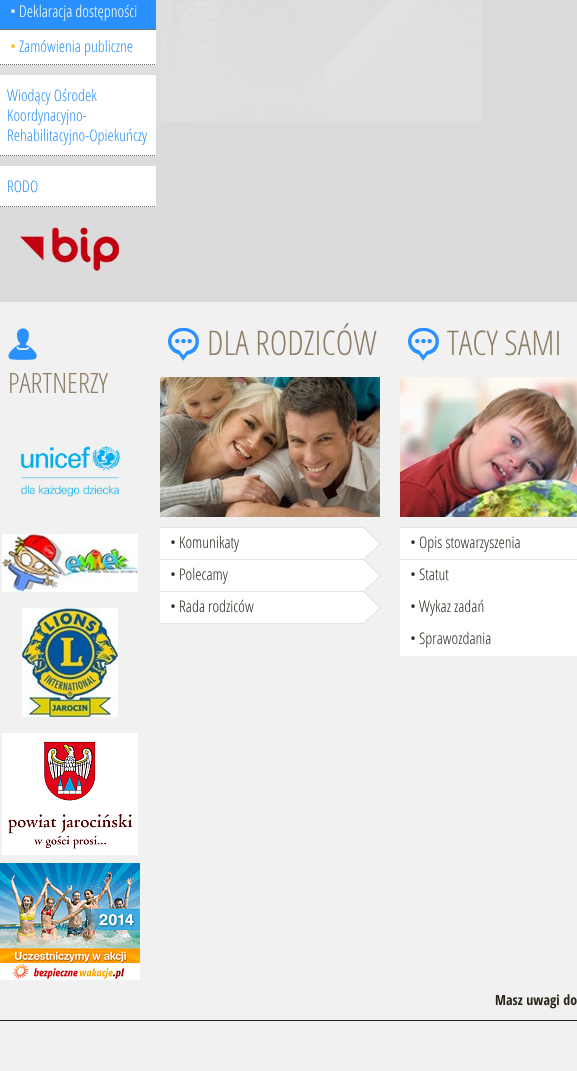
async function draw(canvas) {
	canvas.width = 577;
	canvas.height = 1071;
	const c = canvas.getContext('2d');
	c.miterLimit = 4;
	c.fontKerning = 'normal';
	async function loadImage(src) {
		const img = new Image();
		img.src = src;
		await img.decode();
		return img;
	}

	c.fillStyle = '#dbdbdb';
	c.fillRect(0, 0, 577, 1071);
	c.drawImage(await loadImage('img1.png'), 0, 0, 482, 122);
	c.fillStyle = '#2a90fd';
	c.fillRect(0, 0, 156, 30);
	c.beginPath();
	c.moveTo(0, 29.5);
	c.lineTo(156, 29.5);
	c.strokeStyle = '#686868';
	c.setLineDash([1, 1]);
	c.stroke();
	c.font = '300 16px Open Sans Condensed';
	c.fillStyle = '#fff';
	c.fillText('• Deklaracja dostępności', 10, 17);
	c.fillRect(0, 30, 156, 35);
	c.beginPath();
	c.moveTo(0, 64.5);
	c.lineTo(156, 64.5);
	c.stroke();
	c.fillStyle = '#ffbf01';
	c.fillText('•', 10, 52);
	c.fillStyle = '#2a90fd';
	c.fillText('Zamówienia publiczne', 19, 52);
	c.fillStyle = '#fff';
	c.fillRect(0, 75, 156, 81);
	c.beginPath();
	c.moveTo(0, 155.5);
	c.lineTo(156, 155.5);
	c.stroke();
	c.fillStyle = '#2a90fd';
	for (const [text, x, y] of [
		['Wiodący Ośrodek', 7, 101],
		['Koordynacyjno-', 7, 121],
		['Rehabilitacyjno-Opiekuńczy', 7, 141],
	]) {
		c.fillText(text, x, y);
	}
	c.fillStyle = '#fff';
	c.fillRect(0, 166, 156, 41);
	c.beginPath();
	c.moveTo(0, 206.5);
	c.lineTo(156, 206.5);
	c.stroke();
	c.fillStyle = '#2a90fd';
	c.fillText('RODO', 7, 192);
	c.drawImage(await loadImage('img2.png'), 20, 227, 99, 44);
	c.fillStyle = '#f1f1f1';
	c.fillRect(0, 302, 577, 769);
	c.drawImage(await loadImage('img3.png'), 8, 328, 29, 32);
	c.font = '300 28px Open Sans Condensed';
	c.fillStyle = '#8e7e66';
	c.fillText('PARTNERZY', 8, 393);
	c.drawImage(await loadImage('img4.png'), 20, 446, 101, 51);
	c.drawImage(await loadImage('img5.png'), 2, 534, 136, 58);
	c.drawImage(await loadImage('img6.png'), 22, 608, 96, 109);
	c.drawImage(await loadImage('img7.png'), 2, 733, 136, 122);
	c.drawImage(await loadImage('img8.png'), 0, 863, 140, 117);
	c.drawImage(await loadImage('img9.png'), 168, 328, 31, 33);
	c.font = '300 34px Open Sans Condensed';
	c.fillText('DLA RODZICÓW', 207, 355);
	c.drawImage(await loadImage('img10.png'), 160, 377, 220, 140);
	c.drawImage(await loadImage('img11.png'), 160, 527, 220, 33);
	c.font = '300 16px Open Sans Condensed';
	c.fillStyle = '#2d261c';
	c.fillText('• Komunikaty', 170, 548);
	c.drawImage(await loadImage('img12.png'), 160, 560, 220, 32);
	c.fillText('• Polecamy', 170, 580);
	c.drawImage(await loadImage('img12.png'), 160, 592, 220, 32);
	c.fillText('• Rada rodziców', 170, 612);
	c.drawImage(await loadImage('img9.png'), 408, 328, 31, 33);
	c.font = '300 34px Open Sans Condensed';
	c.fillStyle = '#8e7e66';
	c.fillText('TACY SAMI', 447, 355);
	c.drawImage(await loadImage('img13.png'), 400, 377, 177, 140);
	c.drawImage(await loadImage('img14.png'), 400, 527, 177, 33);
	c.font = '300 16px Open Sans Condensed';
	c.fillStyle = '#2d261c';
	c.fillText('• Opis stowarzyszenia', 410, 548);
	c.fillStyle = '#fff';
	c.fillRect(400, 560, 177, 96);
	c.fillStyle = '#2d261c';
	for (const [text, x, y] of [
		['• Statut', 410, 580],
		['• Wykaz zadań', 410, 612],
		['• Sprawozdania', 410, 644],
	]) {
		c.fillText(text, x, y);
	}
	c.fillRect(0, 1020, 577, 1);
	c.font = 'bold 14px Open Sans Condensed';
	c.fillText('Masz uwagi do', 495, 1005);
}

draw(document.querySelector('canvas'));
